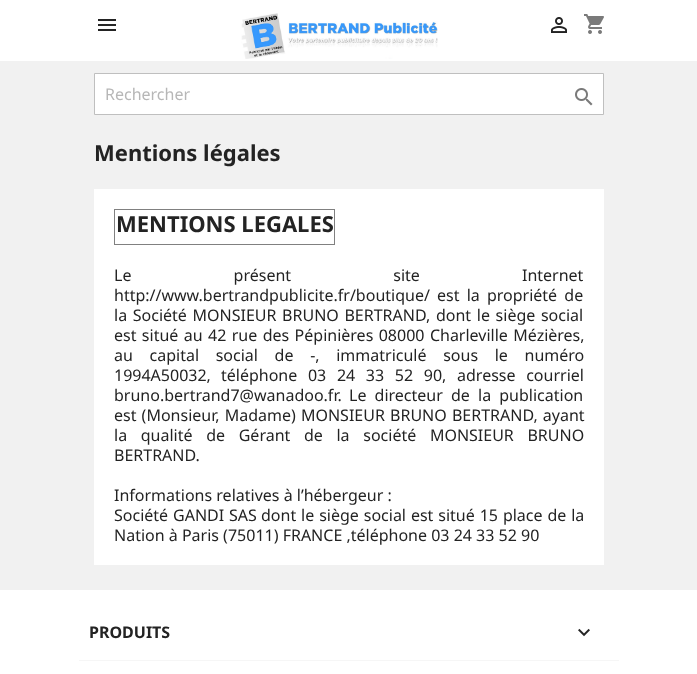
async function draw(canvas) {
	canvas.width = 697;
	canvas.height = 674;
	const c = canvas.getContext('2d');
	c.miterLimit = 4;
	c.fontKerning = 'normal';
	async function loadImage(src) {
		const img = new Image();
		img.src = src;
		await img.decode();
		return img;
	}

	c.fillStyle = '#fff';
	c.fillRect(0, 0, 697, 674);
	c.fillStyle = '#f1f1f1';
	c.fillRect(0, 61, 697, 529);
	c.drawImage(await loadImage('img1.png'), 98, 19, 18, 12);
	c.drawImage(await loadImage('img2.png'), 241, 13, 197, 46);
	c.drawImage(await loadImage('img3.png'), 551, 17, 16, 16);
	c.drawImage(await loadImage('img4.png'), 584, 14, 20, 20);
	c.fillStyle = '#fff';
	c.beginPath();
	c.rect(94.5, 73.5, 509, 41);
	c.fill();
	c.strokeStyle = '#bfbfbf';
	c.stroke();
	c.font = '16px Noto Sans';
	c.fillStyle = '#b7b7b7';
	c.fillText('Rechercher', 105, 100);
	c.drawImage(await loadImage('img5.png'), 575, 88, 18, 18);
	c.font = 'bold 22px Noto Sans';
	c.fillStyle = '#232323';
	c.fillText('Mentions légales', 94, 161);
	for (const [x, y, w, h, color] of [
		[94, 189, 510, 376, '#fff'],
		[114, 209, 221, 1, '#808080'],
		[334, 209, 1, 36, '#808080'],
		[114, 244, 221, 1, '#808080'],
		[114, 209, 1, 36, '#808080'],
	]) {
		c.fillStyle = color;
		c.fillRect(x, y, w, h);
	}
	c.fillStyle = '#232323';
	c.fillText('MENTIONS LEGALES', 116, 232);
	c.wordSpacing = '98px';
	c.font = '16px Noto Sans';
	c.fillText('Le présent site Internet', 114, 281);
	c.wordSpacing = '3px';
	c.fillText('http://www.bertrandpublicite.fr/boutique/ est la propriété de', 114, 301);
	c.wordSpacing = '1.5px';
	c.fillText('la Société MONSIEUR BRUNO BERTRAND, dont le siège social', 114, 321);
	c.wordSpacing = '1.25px';
	c.fillText('est situé au 42 rue des Pépinières 08000 Charleville Mézières,', 114, 341);
	c.wordSpacing = '12.5px';
	c.fillText('au capital social de -, immatriculé sous le numéro', 114, 361);
	c.wordSpacing = '0px';
	c.fillText('1994A50032,', 114, 381);
	c.wordSpacing = '6.5px';
	c.fillText('téléphone 03 24 33 52 90, adresse courriel', 221, 381);
	c.wordSpacing = '0px';
	c.fillText('bruno.bertrand7@wanadoo.fr.', 114, 401);
	c.wordSpacing = '4px';
	c.fillText('Le directeur de la publication', 349, 401);
	c.wordSpacing = '1px';
	c.fillText('est (Monsieur, Madame) MONSIEUR BRUNO BERTRAND, ayant', 114, 421);
	c.wordSpacing = '9.5px';
	c.fillText('la qualité de Gérant de la société MONSIEUR BRUNO', 114, 441);
	c.wordSpacing = '0px';
	c.fillText('BERTRAND.', 114, 461);
	c.fillText('Informations relatives à l’hébergeur :', 114, 501);
	c.wordSpacing = '0.75px';
	c.fillText('Société GANDI SAS', 114, 521);
	c.fillText('dont le siège social est situé 15 place de la', 261, 521);
	c.wordSpacing = '0px';
	c.fillText('Nation à Paris (75011) FRANCE ,téléphone 03 24 33 52 90', 114, 541);
	c.fillStyle = '#f6f6f6';
	c.fillRect(79, 660, 540, 1);
	c.font = 'bold 16px Noto Sans';
	c.fillStyle = '#232323';
	c.fillText('PRODUITS', 89, 638);
	c.drawImage(await loadImage('img6.png'), 578, 628, 12, 9);
}

draw(document.querySelector('canvas'));
